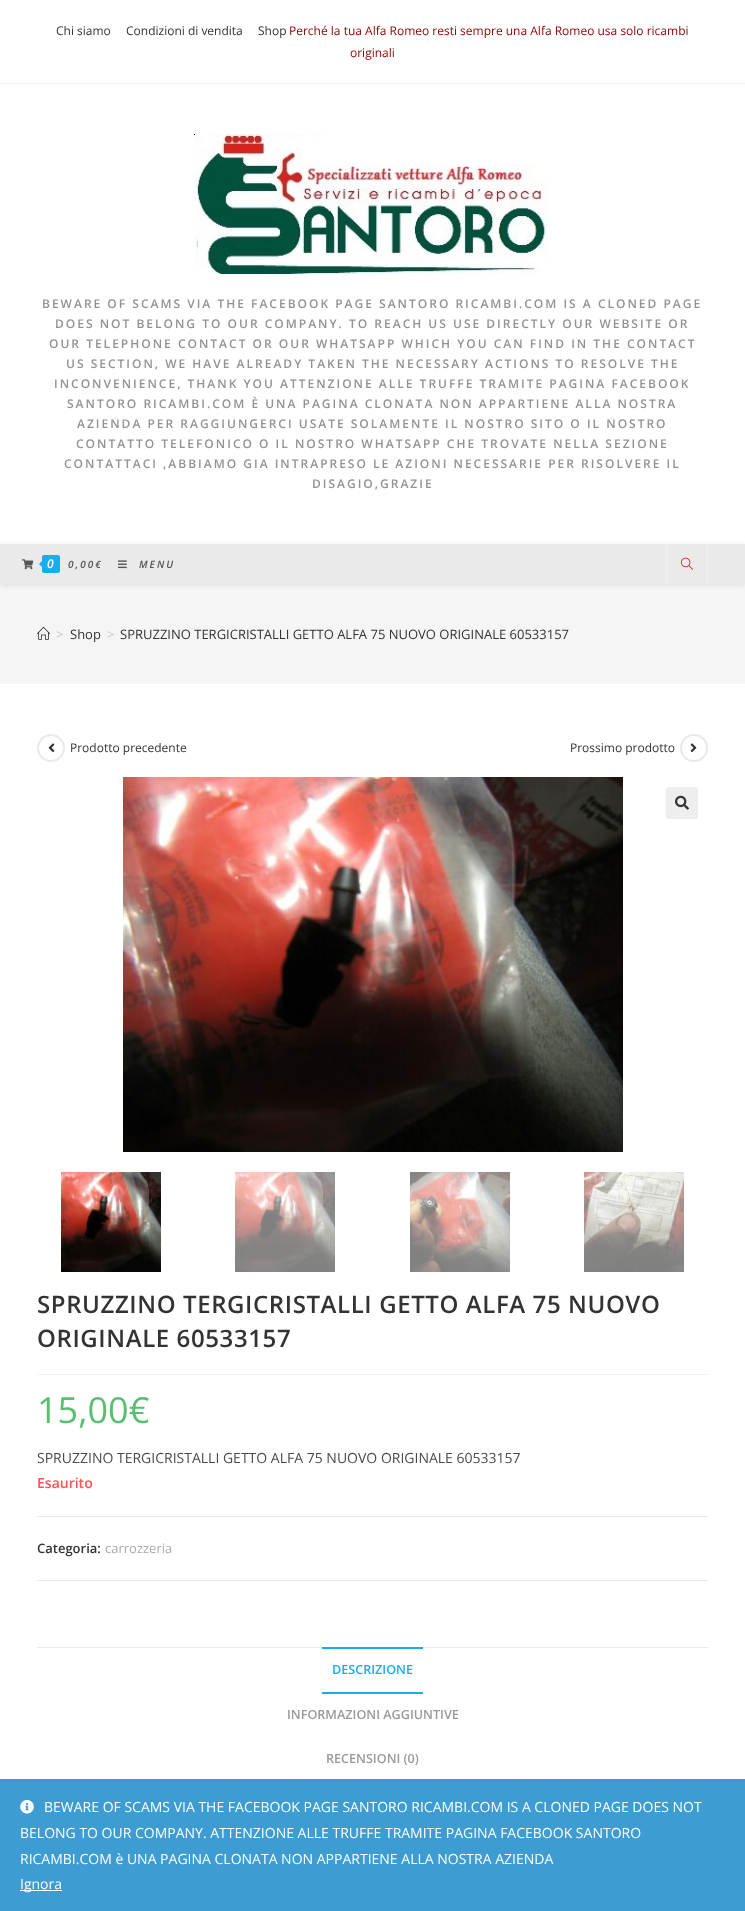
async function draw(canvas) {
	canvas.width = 745;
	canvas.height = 1911;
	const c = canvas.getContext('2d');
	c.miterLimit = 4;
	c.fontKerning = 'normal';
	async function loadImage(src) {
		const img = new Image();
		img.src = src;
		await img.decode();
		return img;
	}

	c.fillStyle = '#fff';
	c.fillRect(0, 0, 745, 1911);
	c.fillStyle = '#f1f1f1';
	c.fillRect(0, 83, 745, 1);
	c.font = '12px Open Sans';
	c.fillStyle = '#333';
	for (const [text, x, y] of [
		['Chi siamo', 56, 35],
		['Condizioni di vendita', 126, 35],
		['Shop', 258, 35],
	]) {
		c.fillText(text, x, y);
	}
	c.fillStyle = '#910000';
	c.fillText('Perché la tua Alfa Romeo resti sempre una Alfa Romeo usa solo ricambi', 289, 35);
	c.fillText('originali', 350, 57);
	c.drawImage(await loadImage('img1.png'), 194, 134, 355, 140);
	c.letterSpacing = '2px';
	c.font = '600 12px Open Sans';
	c.fillStyle = '#929292';
	for (const [text, x, y] of [
		['BEWARE OF SCAMS VIA THE FACEBOOK PAGE SANTORO RICAMBI.COM IS A CLONED PAGE', 42, 308],
		['DOES NOT BELONG TO OUR COMPANY. TO REACH US USE DIRECTLY OUR WEBSITE OR', 55, 328],
		['OUR TELEPHONE CONTACT OR OUR WHATSAPP WHICH YOU CAN FIND IN THE CONTACT', 49, 348],
		['US SECTION, WE HAVE ALREADY TAKEN THE NECESSARY ACTIONS TO RESOLVE THE', 66, 368],
		['INCONVENIENCE, THANK YOU ATTENZIONE ALLE TRUFFE TRAMITE PAGINA FACEBOOK', 54, 388],
		['SANTORO RICAMBI.COM È UNA PAGINA CLONATA NON APPARTIENE ALLA NOSTRA', 67, 408],
		['AZIENDA PER RAGGIUNGERCI USATE SOLAMENTE IL NOSTRO SITO O IL NOSTRO', 77, 428],
		['CONTATTO TELEFONICO O IL NOSTRO WHATSAPP CHE TROVATE NELLA SEZIONE', 76, 448],
		['CONTATTACI ,ABBIAMO GIA INTRAPRESO LE AZIONI NECESSARIE PER RISOLVERE IL', 64, 468],
		['DISAGIO,GRAZIE', 312, 488],
	]) {
		c.fillText(text, x, y);
	}
	c.fillStyle = '#f5f5f5';
	c.fillRect(0, 584, 745, 100);
	c.fillStyle = '#0000001a';
	c.filter = 'blur(2.5px)';
	c.beginPath();
	c.rect(0, 545, 745, 40);
	c.fill();
	c.filter = 'none';
	c.fillStyle = '#eaeaea';
	c.fillRect(0, 544, 745, 40);
	c.drawImage(await loadImage('img2.png'), 22, 559, 12, 11);
	c.fillStyle = '#13aff0';
	c.beginPath();
	c.roundRect(42, 555, 18, 18, 2);
	c.fill();
	c.beginPath();
	c.moveTo(44, 559);
	c.lineTo(44, 569);
	c.lineTo(39, 564);
	c.closePath();
	c.fill();
	c.font = 'italic 600 12px Open Sans';
	c.fillStyle = '#fff';
	c.fillText('0', 47, 568);
	c.font = 'italic 600 10px Open Sans';
	c.fillStyle = '#555';
	c.fillText('0,00€', 68, 568);
	c.drawImage(await loadImage('img3.png'), 118, 560, 9, 9);
	c.fillText('MENU', 139, 568);
	c.fillStyle = '#f1f1f1';
	c.fillRect(707, 544, 1, 40);
	c.fillRect(666, 544, 1, 40);
	c.drawImage(await loadImage('img4.png'), 681, 557, 12, 13);
	c.drawImage(await loadImage('img5.png'), 37, 626, 13, 14);
	c.letterSpacing = '0px';
	c.font = '13px Open Sans';
	c.fillStyle = '#c6c6c6';
	c.fillText('>', 56, 639);
	c.fillStyle = '#333';
	c.fillText('Shop', 70, 639);
	c.fillStyle = '#c6c6c6';
	c.fillText('>', 107, 639);
	c.fillStyle = '#333';
	c.fillText('SPRUZZINO TERGICRISTALLI GETTO ALFA 75 NUOVO ORIGINALE 60533157', 120, 639);
	c.beginPath();
	c.arc(51, 748, 13, 0, 2 * Math.PI);
	c.strokeStyle = '#e9e9e9';
	c.lineWidth = 2;
	c.stroke();
	c.drawImage(await loadImage('img6.png'), 48, 743, 7, 10);
	c.font = '12px Open Sans';
	c.fillText('Prodotto precedente', 70, 752);
	c.fillText('Prossimo prodotto', 570, 752);
	c.beginPath();
	c.arc(694, 748, 13, 0, 2 * Math.PI);
	c.stroke();
	c.drawImage(await loadImage('img7.png'), 690, 743, 7, 10);
	c.drawImage(await loadImage('img8.png'), 123, 777, 500, 375);
	c.fillStyle = '#eee';
	c.beginPath();
	c.roundRect(666, 787, 32, 32, 3);
	c.fill();
	c.drawImage(await loadImage('img9.png'), 675, 795, 14, 15);
	c.drawImage(await loadImage('img10.png'), 61, 1172, 100, 100);
	c.drawImage(await loadImage('img11.png'), 235, 1172, 100, 100);
	c.drawImage(await loadImage('img12.png'), 410, 1172, 100, 100);
	c.drawImage(await loadImage('img13.png'), 584, 1172, 100, 100);
	c.fillStyle = '#f1f1f1';
	c.fillRect(37, 1374, 671, 1);
	c.letterSpacing = '0.6px';
	c.font = '600 24px Open Sans';
	c.fillStyle = '#333';
	c.fillText('SPRUZZINO TERGICRISTALLI GETTO ALFA 75 NUOVO', 37, 1313);
	c.fillText('ORIGINALE 60533157', 37, 1347);
	c.letterSpacing = '0px';
	c.font = '36px Open Sans';
	c.fillStyle = '#57bf6d';
	c.fillText('15,00€', 37, 1423);
	c.font = '14px Open Sans';
	c.fillStyle = '#4a4a4a';
	c.fillText('SPRUZZINO TERGICRISTALLI GETTO ALFA 75 NUOVO ORIGINALE 60533157', 37, 1463);
	c.font = '600 14px Open Sans';
	c.fillStyle = '#fe5252';
	c.fillText('Esaurito', 37, 1488);
	c.fillStyle = '#eaeaea';
	c.fillRect(37, 1516, 671, 1);
	c.fillRect(37, 1580, 671, 1);
	c.font = '600 13px Open Sans';
	c.fillStyle = '#333';
	c.fillText('Categoria:', 37, 1553);
	c.font = '13px Open Sans';
	c.fillStyle = '#ababab';
	c.fillText('carrozzeria', 105, 1553);
	for (const [x, y, w, h, color] of [
		[37, 1647, 671, 1, '#eaeaea'],
		[322, 1647, 101, 2, '#13aff0'],
		[322, 1692, 101, 2, '#13aff0'],
	]) {
		c.fillStyle = color;
		c.fillRect(x, y, w, h);
	}
	c.font = '600 12.6px Open Sans';
	c.fillText('DESCRIZIONE', 332, 1674);
	c.fillStyle = '#999';
	c.fillText('INFORMAZIONI AGGIUNTIVE', 287, 1719);
	c.fillText('RECENSIONI (0)', 326, 1763);
	c.fillStyle = '#3d9cd2';
	c.fillRect(0, 1779, 745, 132);
	c.drawImage(await loadImage('img14.png'), 20, 1800, 14, 14);
	c.font = '14px Open Sans';
	c.fillStyle = '#fff';
	for (const [text, x, y] of [
		['BEWARE OF SCAMS VIA THE FACEBOOK PAGE SANTORO RICAMBI.COM IS A CLONED PAGE DOES NOT', 44, 1812],
		['BELONG TO OUR COMPANY. ATTENZIONE ALLE TRUFFE TRAMITE PAGINA FACEBOOK SANTORO', 20, 1838],
		['RICAMBI.COM è UNA PAGINA CLONATA NON APPARTIENE ALLA NOSTRA AZIENDA', 20, 1864],
	]) {
		c.fillText(text, x, y);
	}
	c.fillRect(20, 1890, 42, 1);
	c.fillText('Ignora', 20, 1889);
}

draw(document.querySelector('canvas'));
